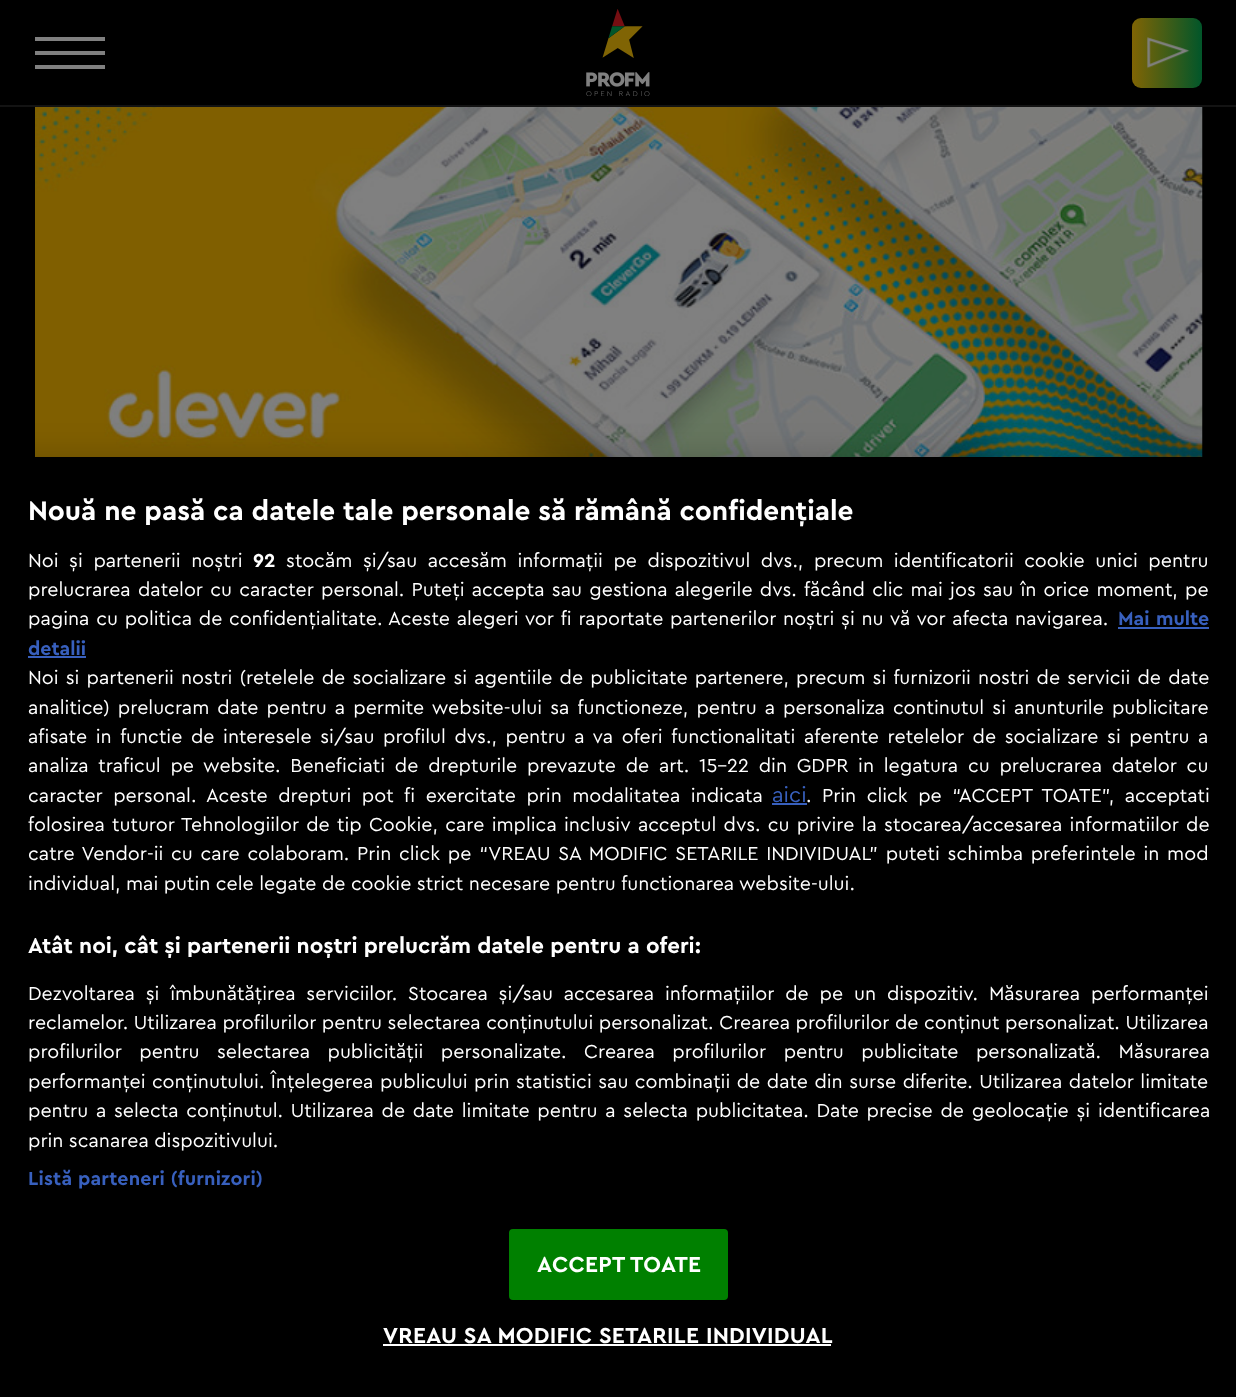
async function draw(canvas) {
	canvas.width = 1236;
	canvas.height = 1397;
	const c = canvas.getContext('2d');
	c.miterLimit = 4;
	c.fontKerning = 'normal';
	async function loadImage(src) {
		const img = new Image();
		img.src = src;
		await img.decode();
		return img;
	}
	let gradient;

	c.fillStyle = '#000';
	c.fillRect(0, 0, 1236, 1397);
	for (const [x, y, w, h, color] of [
		[0, 105, 1236, 2, '#131313'],
		[35, 51, 70, 4, '#808080'],
		[35, 37, 70, 4, '#808080'],
		[35, 65, 70, 4, '#808080'],
	]) {
		c.fillStyle = color;
		c.fillRect(x, y, w, h);
	}
	c.drawImage(await loadImage('img1.png'), 586, 9, 64, 87);
	gradient = c.createLinearGradient(1132, 53, 1202, 53);
	gradient.addColorStop(0, '#806404');
	gradient.addColorStop(1, '#01562a');
	c.fillStyle = gradient;
	c.beginPath();
	c.roundRect(1132, 18, 70, 70, 9);
	c.fill();
	c.drawImage(await loadImage('img2.png'), 1147, 37, 43, 32);
	c.drawImage(await loadImage('img3.png'), 35, 107, 1168, 350);
	c.fillStyle = '#00000033';
	c.filter = 'blur(16px)';
	c.beginPath();
	c.rect(0, 457, 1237, 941);
	c.fill();
	c.filter = 'none';
	c.font = 'bold 28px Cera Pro';
	c.fillStyle = '#fff';
	c.fillText('Nouă ne pasă ca datele tale personale să rămână confidențiale', 28, 520);
	c.wordSpacing = '5.1px';
	c.font = '19.6px Cera Pro';
	c.fillText('Noi și partenerii noștri', 28, 567);
	c.wordSpacing = '0px';
	c.font = 'bold 19.6px Cera Pro';
	c.fillText('92', 253, 567);
	c.wordSpacing = '5.1px';
	c.font = '19.6px Cera Pro';
	c.fillText('stocăm și/sau accesăm informații pe dispozitivul dvs., precum identificatorii cookie unici pentru', 286, 567);
	c.wordSpacing = '1.75px';
	c.fillText('prelucrarea datelor cu caracter personal. Puteți accepta sau gestiona alegerile dvs. făcând clic mai jos sau în orice moment, pe', 28, 596);
	c.wordSpacing = '1.25px';
	c.fillText('pagina cu politica de confidențialitate. Aceste alegeri vor fi raportate partenerilor noștri și nu vă vor afecta navigarea.', 28, 625);
	c.wordSpacing = '1px';
	c.font = 'bold 19.6px Cera Pro';
	c.fillStyle = '#3860be';
	c.fillText('Mai multe', 1118, 625);
	c.fillRect(1118, 627, 91, 2);
	c.wordSpacing = '0px';
	c.fillText('detalii', 28, 655);
	c.fillRect(28, 656, 58, 2);
	c.wordSpacing = '1.7px';
	c.font = '19.6px Cera Pro';
	c.fillStyle = '#fff';
	c.fillText('Noi si partenerii nostri (retelele de socializare si agentiile de publicitate partenere, precum si furnizorii nostri de servicii de date', 28, 684);
	c.wordSpacing = '2.6px';
	c.fillText('analitice) prelucram date pentru a permite website-ului sa functioneze, pentru a personaliza continutul si anunturile publicitare', 28, 714);
	c.wordSpacing = '3.1px';
	c.fillText('afisate in functie de interesele si/sau profilul dvs., pentru a va oferi functionalitati aferente retelelor de socializare si pentru a', 28, 743);
	c.wordSpacing = '4.25px';
	c.fillText('analiza traficul pe website. Beneficiati de drepturile prevazute de art. 15-22 din GDPR in legatura cu prelucrarea datelor cu', 28, 772);
	c.wordSpacing = '5px';
	c.fillText('caracter personal. Aceste drepturi pot fi exercitate prin modalitatea indicata', 28, 802);
	c.wordSpacing = '0px';
	c.font = '22px Cera Pro';
	c.fillStyle = '#3860be';
	c.fillText('aici', 772, 802);
	c.fillRect(772, 803, 35, 2);
	c.wordSpacing = '5px';
	c.font = '19.6px Cera Pro';
	c.fillStyle = '#fff';
	c.fillText('. Prin click pe “ACCEPT TOATE”, acceptati', 806, 802);
	c.wordSpacing = '1.75px';
	c.fillText('folosirea tuturor Tehnologiilor de tip Cookie, care implica inclusiv acceptul dvs. cu privire la stocarea/accesarea informatiilor de', 28, 831);
	c.wordSpacing = '2.25px';
	c.fillText('catre Vendor-ii cu care colaboram. Prin click pe “VREAU SA MODIFIC SETARILE INDIVIDUAL” puteti schimba preferintele in mod', 28, 860);
	c.wordSpacing = '0px';
	c.fillText('individual, mai putin cele legate de cookie strict necesare pentru functionarea website-ului.', 28, 890);
	c.font = 'bold 22.4px Cera Pro';
	c.fillText('Atât noi, cât și partenerii noștri prelucrăm datele pentru a oferi:', 28, 953);
	c.wordSpacing = '5.4px';
	c.font = '19.6px Cera Pro';
	c.fillText('Dezvoltarea și îmbunătățirea serviciilor. Stocarea și/sau accesarea informațiilor de pe un dispozitiv. Măsurarea performanței', 28, 1000);
	c.wordSpacing = '0.1px';
	c.fillText('reclamelor. Utilizarea profilurilor pentru selectarea conținutului personalizat. Crearea profilurilor de conținut personalizat. Utilizarea', 28, 1029);
	c.wordSpacing = '12px';
	c.fillText('profilurilor pentru selectarea publicității personalizate. Crearea profilurilor pentru publicitate personalizată. Măsurarea', 28, 1058);
	c.wordSpacing = '1px';
	c.fillText('performanței conținutului. Înțelegerea publicului prin statistici sau combinații de date din surse diferite. Utilizarea datelor limitate', 28, 1088);
	c.wordSpacing = '2.25px';
	c.fillText('pentru a selecta conținutul. Utilizarea de date limitate pentru a selecta publicitatea. Date precise de geolocație și identificarea', 28, 1117);
	c.wordSpacing = '0px';
	c.fillText('prin scanarea dispozitivului.', 28, 1147);
	c.letterSpacing = '0.2px';
	c.font = 'bold 19.6px Cera Pro';
	c.fillStyle = '#3860be';
	c.fillText('Listă parteneri (furnizori)', 28, 1185);
	c.fillStyle = '#008000';
	c.beginPath();
	c.roundRect(510, 1230, 217, 69, 3);
	c.fill();
	c.strokeStyle = '#008000';
	c.lineWidth = 2;
	c.stroke();
	c.letterSpacing = '0.25px';
	c.font = 'bold 22.75px Cera Pro';
	c.fillStyle = '#fff';
	c.fillText('ACCEPT TOATE', 537, 1272);
	c.fillText('VREAU SA MODIFIC SETARILE INDIVIDUAL', 383, 1343);
	c.fillRect(383, 1344, 448, 2);
}

draw(document.querySelector('canvas'));
